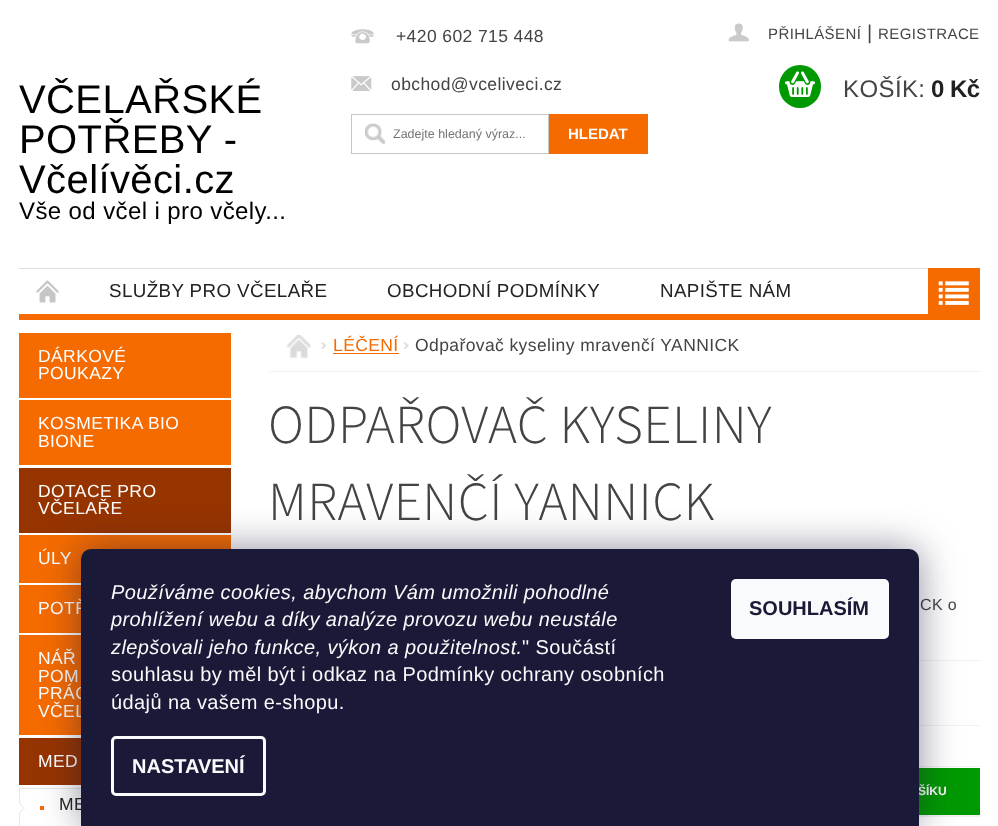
async function draw(canvas) {
	canvas.width = 998;
	canvas.height = 826;
	const c = canvas.getContext('2d');
	c.miterLimit = 4;
	c.fontKerning = 'normal';
	async function loadImage(src) {
		const img = new Image();
		img.src = src;
		await img.decode();
		return img;
	}

	c.fillStyle = '#fff';
	c.fillRect(0, 0, 998, 826);
	c.fillStyle = '#f56b00';
	c.fillRect(19, 314, 909, 6);
	c.letterSpacing = '0.4px';
	c.font = '40px Liberation Sans';
	c.fillStyle = '#000';
	for (const [text, x, y] of [
		['VČELAŘSKÉ', 19, 113],
		['POTŘEBY -', 19, 153],
		['Včelívěci.cz', 19, 193],
	]) {
		c.fillText(text, x, y);
	}
	c.font = '24px Liberation Sans';
	c.fillText('Vše od včel i pro včely...', 19, 219);
	c.drawImage(await loadImage('img1.png'), 351, 29, 23, 15);
	c.font = '17.5px Liberation Sans';
	c.fillStyle = '#444';
	c.fillText('+420 602 715 448', 396, 42);
	c.drawImage(await loadImage('img2.png'), 351, 76, 21, 15);
	c.fillText('obchod@vceliveci.cz', 391, 90);
	c.drawImage(await loadImage('img3.png'), 365, 123, 21, 21);
	c.strokeStyle = '#c6c6c6';
	c.strokeRect(351.5, 114.5, 197, 39);
	c.letterSpacing = '0px';
	c.font = '12.5px Liberation Sans';
	c.fillStyle = '#757575';
	c.fillText('Zadejte hledaný výraz...', 393, 138);
	c.fillStyle = '#f56b00';
	c.fillRect(549, 114, 99, 40);
	c.font = 'bold 15px Liberation Sans';
	c.fillStyle = '#fff';
	c.fillText('HLEDAT', 568, 139);
	c.drawImage(await loadImage('img4.png'), 728, 23, 21, 19);
	c.letterSpacing = '0.4px';
	c.font = '15px Liberation Sans';
	c.fillStyle = '#444';
	c.fillText('PŘIHLÁŠENÍ', 768, 39);
	c.font = '20px Liberation Sans';
	c.fillText('|', 867, 39);
	c.font = '15px Liberation Sans';
	c.fillText('REGISTRACE', 878, 39);
	c.fillStyle = '#009901';
	c.beginPath();
	c.roundRect(779, 65, 42, 43, 21);
	c.fill();
	c.drawImage(await loadImage('img5.png'), 785, 71, 30, 26);
	c.font = '24px Liberation Sans';
	c.fillStyle = '#444';
	c.fillText('KOŠÍK:', 843, 97);
	c.letterSpacing = '-0.5px';
	c.font = 'bold 24px Liberation Sans';
	c.fillStyle = '#222';
	c.fillText('0 Kč', 931, 97);
	c.fillStyle = '#e0e0e0';
	c.fillRect(19, 268, 909, 1);
	c.drawImage(await loadImage('img6.png'), 36, 280, 23, 23);
	c.letterSpacing = '0.4px';
	c.font = '18.75px Liberation Sans';
	c.fillStyle = '#222';
	for (const [text, x, y] of [
		['SLUŽBY PRO VČELAŘE', 109, 297],
		['OBCHODNÍ PODMÍNKY', 387, 297],
		['NAPIŠTE NÁM', 660, 297],
	]) {
		c.fillText(text, x, y);
	}
	c.fillStyle = '#f56b00';
	c.fillRect(928, 268, 52, 52);
	c.drawImage(await loadImage('img7.png'), 938, 281, 31, 24);
	c.fillRect(19, 333, 212, 65);
	c.font = '17.5px Liberation Sans';
	c.fillStyle = '#fff';
	c.fillText('DÁRKOVÉ', 38, 362);
	c.fillText('POUKAZY', 38, 379);
	c.fillStyle = '#f56b00';
	c.fillRect(19, 400, 212, 65);
	c.fillStyle = '#fff';
	c.fillText('KOSMETIKA BIO', 38, 429);
	c.fillText('BIONE', 38, 447);
	c.fillStyle = '#963400';
	c.fillRect(19, 468, 212, 65);
	c.fillStyle = '#fff';
	c.fillText('DOTACE PRO', 38, 497);
	c.fillText('VČELAŘE', 38, 514);
	c.fillStyle = '#f56b00';
	c.fillRect(19, 535, 212, 48);
	c.fillStyle = '#fff';
	c.fillText('ÚLY', 38, 564);
	c.fillStyle = '#f56b00';
	c.fillRect(19, 585, 62, 48);
	c.fillStyle = '#fff';
	c.fillText('POTŘ', 38, 614);
	c.fillStyle = '#f56b00';
	c.fillRect(19, 635, 62, 100);
	c.wordSpacing = '-1px';
	c.fillStyle = '#fff';
	c.fillText('NÁŘ', 38, 664);
	c.wordSpacing = '0px';
	for (const [text, x, y] of [
		['POM', 38, 682],
		['PRÁC', 38, 699],
		['VČEL', 38, 717],
	]) {
		c.fillText(text, x, y);
	}
	c.fillStyle = '#963400';
	c.fillRect(19, 738, 62, 47);
	c.fillStyle = '#fff';
	c.fillText('MED', 38, 767);
	c.strokeStyle = '#e7e7e7';
	c.strokeRect(19.5, 788.5, 211, 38);
	c.drawImage(await loadImage('img8.png'), 18, 803, 7, 10);
	c.fillStyle = '#f56b00';
	c.fillRect(40, 806, 4, 4);
	c.fillStyle = '#222';
	c.fillText('ME', 59, 810);
	c.fillStyle = '#f2f2f2';
	c.fillRect(269, 371, 711, 1);
	c.drawImage(await loadImage('img9.png'), 286, 335, 25, 24);
	c.drawImage(await loadImage('img10.png'), 321, 342, 6, 7);
	c.fillStyle = '#f56b00';
	c.fillText('LÉČENÍ', 333, 351);
	c.fillRect(333, 353, 66, 1);
	c.drawImage(await loadImage('img11.png'), 403, 342, 6, 7);
	c.fillStyle = '#444';
	c.fillText('Odpařovač kyseliny mravenčí YANNICK', 415, 351);
	c.font = '300 55px "Source Sans 3"';
	c.fillText('ODPAŘOVAČ KYSELINY', 268, 443);
	c.fillText('MRAVENČÍ YANNICK', 268, 520);
	c.fillStyle = '#f2f2f2';
	c.fillRect(919, 660, 61, 1);
	c.font = '16px Liberation Sans';
	c.fillStyle = '#444';
	c.fillText('CK o', 920, 610);
	for (const [x, y, w, h, color] of [
		[919, 725, 62, 1, '#f2f2f2'],
		[919, 766, 62, 1, '#f2f2f2'],
		[919, 815, 62, 2, '#f2f2f2'],
		[919, 768, 61, 47, '#009901'],
	]) {
		c.fillStyle = color;
		c.fillRect(x, y, w, h);
	}
	c.letterSpacing = '0px';
	c.font = 'bold 12px Liberation Sans';
	c.fillStyle = '#fff';
	c.fillText('ŠÍKU', 918, 795);
	c.fillStyle = '#1b193980';
	c.filter = 'blur(19px)';
	c.beginPath();
	c.roundRect(81, 549, 838, 277, 10);
	c.fill();
	c.filter = 'none';
	c.fillStyle = '#1a1937';
	c.beginPath();
	c.roundRect(81, 549, 838, 277, [10, 10, 0, 0]);
	c.fill();
	c.letterSpacing = '0.4px';
	c.font = 'italic 20px Liberation Sans';
	c.fillStyle = '#f8fafb';
	for (const [text, x, y] of [
		['Používáme cookies, abychom Vám umožnili pohodlné', 111, 599],
		['prohlížení webu a díky analýze provozu webu neustále', 111, 626],
		['zlepšovali jeho funkce, výkon a použitelnost.', 111, 654],
	]) {
		c.fillText(text, x, y);
	}
	c.font = '20px Liberation Sans';
	for (const [text, x, y] of [
		['" Součástí', 522, 654],
		['souhlasu by měl být i odkaz na Podmínky ochrany osobních', 111, 681],
		['údajů na vašem e-shopu.', 111, 709],
	]) {
		c.fillText(text, x, y);
	}
	c.beginPath();
	c.roundRect(112.5, 737.5, 152, 57, 3.5);
	c.strokeStyle = '#f8fafb';
	c.lineWidth = 3;
	c.stroke();
	c.letterSpacing = '0px';
	c.font = 'bold 20px Liberation Sans';
	c.fillText('NASTAVENÍ', 132, 773);
	c.beginPath();
	c.roundRect(731, 579, 158, 60, 5);
	c.fill();
	c.fillStyle = '#1a1937';
	c.fillText('SOUHLASÍM', 749, 615);
}

draw(document.querySelector('canvas'));
